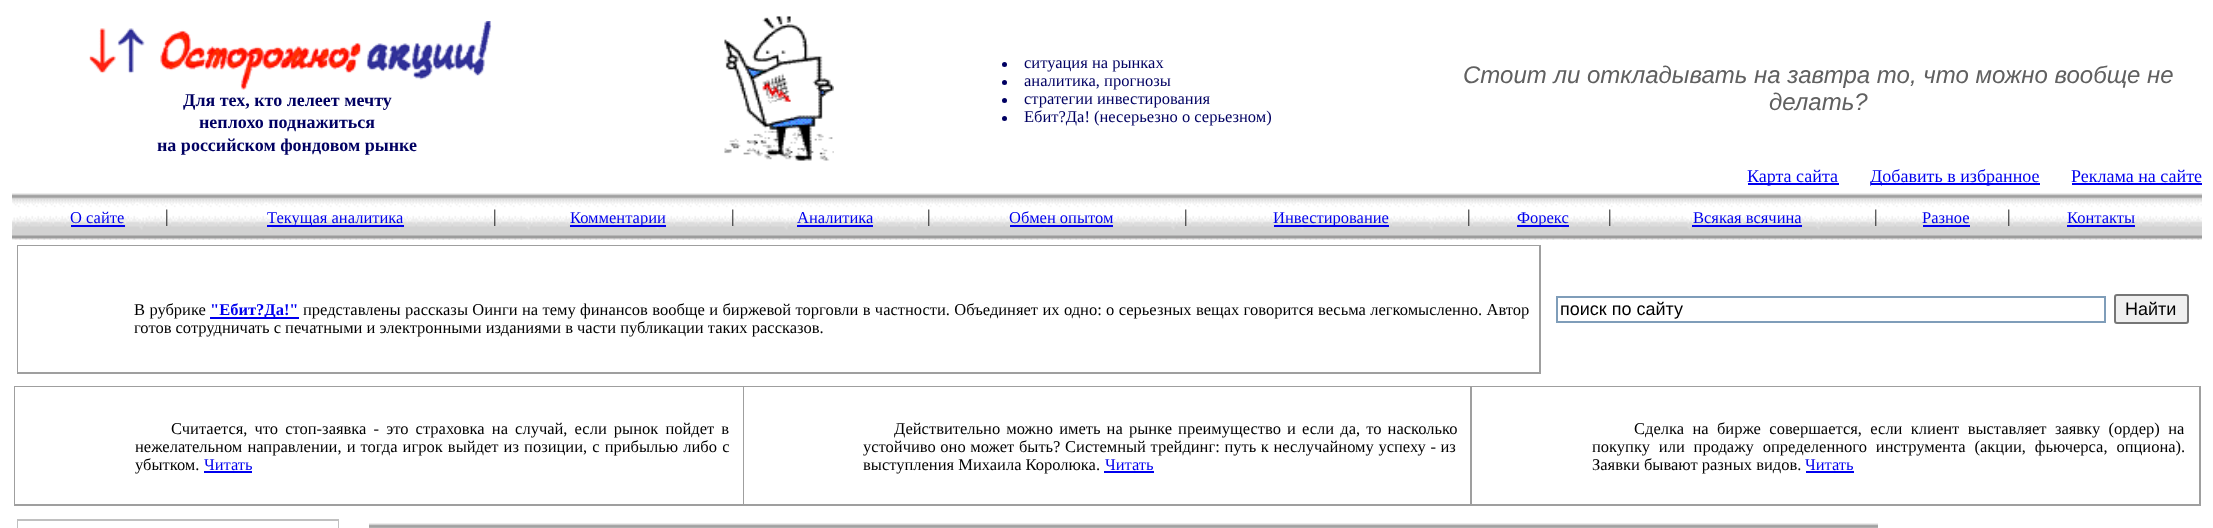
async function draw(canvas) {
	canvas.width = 2213;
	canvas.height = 528;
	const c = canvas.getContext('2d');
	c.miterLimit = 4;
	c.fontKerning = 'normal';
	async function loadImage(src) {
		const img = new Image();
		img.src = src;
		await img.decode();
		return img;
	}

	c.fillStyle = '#fff';
	c.fillRect(0, 0, 2213, 528);
	c.drawImage(await loadImage('img1.png'), 724, 16, 110, 145);
	c.fillStyle = '#000062';
	c.beginPath();
	c.arc(1004.5, 64.5, 2.5, 0, 2 * Math.PI);
	c.fill();
	c.font = '16.5px Liberation Serif';
	c.fillText('ситуация на рынках', 1024, 68);
	c.beginPath();
	c.arc(1004.5, 82.5, 2.5, 0, 2 * Math.PI);
	c.fill();
	c.fillText('аналитика, прогнозы', 1024, 86);
	c.beginPath();
	c.arc(1004.5, 100.5, 2.5, 0, 2 * Math.PI);
	c.fill();
	c.fillText('стратегии инвестирования', 1024, 104);
	c.beginPath();
	c.arc(1004.5, 118.5, 2.5, 0, 2 * Math.PI);
	c.fill();
	c.fillText('Ебит?Да! (несерьезно о серьезном)', 1024, 122);
	c.font = 'italic 24px Liberation Sans';
	c.fillStyle = '#606060';
	c.fillText('Стоит ли откладывать на завтра то, что можно вообще не', 1463, 83);
	c.fillText('делать?', 1769, 110);
	c.drawImage(await loadImage('img2.png'), 89, 21, 403, 69);
	c.font = 'bold 18px Liberation Serif';
	c.fillStyle = '#000062';
	for (const [text, x, y] of [
		['Для тех, кто лелеет мечту', 183, 106],
		['неплохо поднажиться', 199, 128],
		['на российском фондовом рынке', 157, 151],
	]) {
		c.fillText(text, x, y);
	}
	c.fillStyle = '#00e';
	c.fillRect(1748, 183, 91, 2);
	c.font = '18px Liberation Serif';
	c.fillText('Карта сайта', 1747, 182);
	c.fillRect(1871, 183, 169, 2);
	c.fillText('Добавить в избранное', 1870, 182);
	c.fillText('Реклама на сайте', 2071, 182);
	c.fillRect(2072, 183, 130, 2);
	c.drawImage(await loadImage('img3.png'), 12, 193, 2190, 47);
	c.font = '16.5px Liberation Serif';
	c.fillText('О сайте', 70, 223);
	c.fillRect(71, 225, 54, 2);
	c.font = '18px Liberation Serif';
	c.fillStyle = '#000';
	c.fillText('|', 165, 222);
	c.fillStyle = '#00e';
	c.fillRect(267, 225, 137, 2);
	c.font = '16.5px Liberation Serif';
	c.fillText('Текущая аналитика', 267, 223);
	c.font = '18px Liberation Serif';
	c.fillStyle = '#000';
	c.fillText('|', 493, 222);
	c.fillStyle = '#00e';
	c.fillRect(570, 225, 96, 2);
	c.font = '16.5px Liberation Serif';
	c.fillText('Комментарии', 570, 223);
	c.font = '18px Liberation Serif';
	c.fillStyle = '#000';
	c.fillText('|', 731, 222);
	c.font = '16.5px Liberation Serif';
	c.fillStyle = '#00e';
	c.fillText('Аналитика', 797, 223);
	c.fillRect(797, 225, 76, 2);
	c.font = '18px Liberation Serif';
	c.fillStyle = '#000';
	c.fillText('|', 927, 222);
	c.font = '16.5px Liberation Serif';
	c.fillStyle = '#00e';
	c.fillText('Обмен опытом', 1009, 223);
	c.fillRect(1010, 225, 103, 2);
	c.font = '18px Liberation Serif';
	c.fillStyle = '#000';
	c.fillText('|', 1184, 222);
	c.fillStyle = '#00e';
	c.fillRect(1274, 225, 115, 2);
	c.font = '16.5px Liberation Serif';
	c.fillText('Инвестирование', 1273, 223);
	c.font = '18px Liberation Serif';
	c.fillStyle = '#000';
	c.fillText('|', 1467, 222);
	c.fillStyle = '#00e';
	c.fillRect(1517, 225, 52, 2);
	c.font = '16.5px Liberation Serif';
	c.fillText('Форекс', 1517, 223);
	c.font = '18px Liberation Serif';
	c.fillStyle = '#000';
	c.fillText('|', 1608, 222);
	c.font = '16.5px Liberation Serif';
	c.fillStyle = '#00e';
	c.fillText('Всякая всячина', 1693, 223);
	c.fillRect(1692, 225, 110, 2);
	c.font = '18px Liberation Serif';
	c.fillStyle = '#000';
	c.fillText('|', 1874, 222);
	c.font = '16.5px Liberation Serif';
	c.fillStyle = '#00e';
	c.fillText('Разное', 1922, 223);
	c.fillRect(1923, 225, 47, 2);
	c.font = '18px Liberation Serif';
	c.fillStyle = '#000';
	c.fillText('|', 2007, 222);
	c.font = '16.5px Liberation Serif';
	c.fillStyle = '#00e';
	c.fillText('Контакты', 2067, 223);
	for (const [x, y, w, h, color] of [
		[2067, 225, 68, 2, '#00e'],
		[17, 245, 1524, 129, '#9f9f9f'],
		[18, 246, 1521, 126, '#fff'],
	]) {
		c.fillStyle = color;
		c.fillRect(x, y, w, h);
	}
	c.wordSpacing = '0.25px';
	c.fillStyle = '#000';
	c.fillText('В рубрике', 134, 315);
	c.fillStyle = '#00e';
	c.fillRect(210, 317, 89, 2);
	c.wordSpacing = '0px';
	c.font = 'bold 16.5px Liberation Serif';
	c.fillText('"Ебит?Да!"', 210, 315);
	c.wordSpacing = '0.25px';
	c.font = '16.5px Liberation Serif';
	c.fillStyle = '#000';
	c.fillText('представлены рассказы Оинги на тему финансов вообще и биржевой торговли в частности. Объединяет их одно: о серьезных вещах говорится весьма легкомысленно. Автор', 303, 315);
	c.wordSpacing = '0px';
	c.fillText('готов сотрудничать с печатными и электронными изданиями в части публикации таких рассказов.', 134, 333);
	c.strokeStyle = '#7f9db9';
	c.lineWidth = 2;
	c.strokeRect(1557, 297, 548, 25);
	c.font = '18px Liberation Sans';
	c.fillText('поиск по сайту', 1560, 315);
	c.fillStyle = '#efefef';
	c.beginPath();
	c.roundRect(2115, 295, 73, 28, 2);
	c.fill();
	c.strokeStyle = '#767676';
	c.stroke();
	c.fillStyle = '#000';
	c.fillText('Найти', 2125, 315);
	c.fillStyle = '#9f9f9f';
	c.fillRect(14, 386, 2187, 120);
	c.fillStyle = '#fff';
	c.fillRect(15, 387, 728, 117);
	c.wordSpacing = '3px';
	c.font = '16.5px Liberation Serif';
	c.fillStyle = '#000';
	c.fillText('Считается, что стоп-заявка - это страховка на случай, если рынок пойдет в', 171, 434);
	c.wordSpacing = '1px';
	c.fillText('нежелательном направлении, и тогда игрок выйдет из позиции, с прибылью либо с', 135, 452);
	c.wordSpacing = '0px';
	c.fillText('убытком.', 135, 470);
	c.fillStyle = '#00e';
	c.fillText('Читать', 204, 470);
	c.fillRect(204, 471, 48, 2);
	c.fillStyle = '#fff';
	c.fillRect(744, 387, 726, 117);
	c.wordSpacing = '2px';
	c.fillStyle = '#000';
	c.fillText('Действительно можно иметь на рынке преимущество и если да, то насколько', 894, 434);
	c.wordSpacing = '0.5px';
	c.fillText('устойчиво оно может быть? Системный трейдинг: путь к неслучайному успеху - из', 863, 452);
	c.wordSpacing = '0px';
	c.fillText('выступления Михаила Королюка.', 863, 470);
	c.fillStyle = '#00e';
	c.fillText('Читать', 1105, 470);
	c.fillRect(1104, 471, 50, 2);
	c.fillStyle = '#fff';
	c.fillRect(1472, 387, 727, 117);
	c.wordSpacing = '4.25px';
	c.fillStyle = '#000';
	c.fillText('Сделка на бирже совершается, если клиент выставляет заявку (ордер) на', 1634, 434);
	c.wordSpacing = '4.75px';
	c.fillText('покупку или продажу определенного инструмента (акции, фьючерса, опциона).', 1592, 452);
	c.wordSpacing = '0px';
	c.fillText('Заявки бывают разных видов.', 1592, 470);
	c.fillStyle = '#00e';
	c.fillText('Читать', 1805, 470);
	for (const [x, y, w, h, color] of [
		[1806, 471, 48, 2, '#00e'],
		[17, 519, 322, 9, '#c0c0c0'],
		[18, 521, 320, 7, '#fff'],
	]) {
		c.fillStyle = color;
		c.fillRect(x, y, w, h);
	}
	c.drawImage(await loadImage('img4.png'), 369, 523, 1509, 5);
}

draw(document.querySelector('canvas'));
